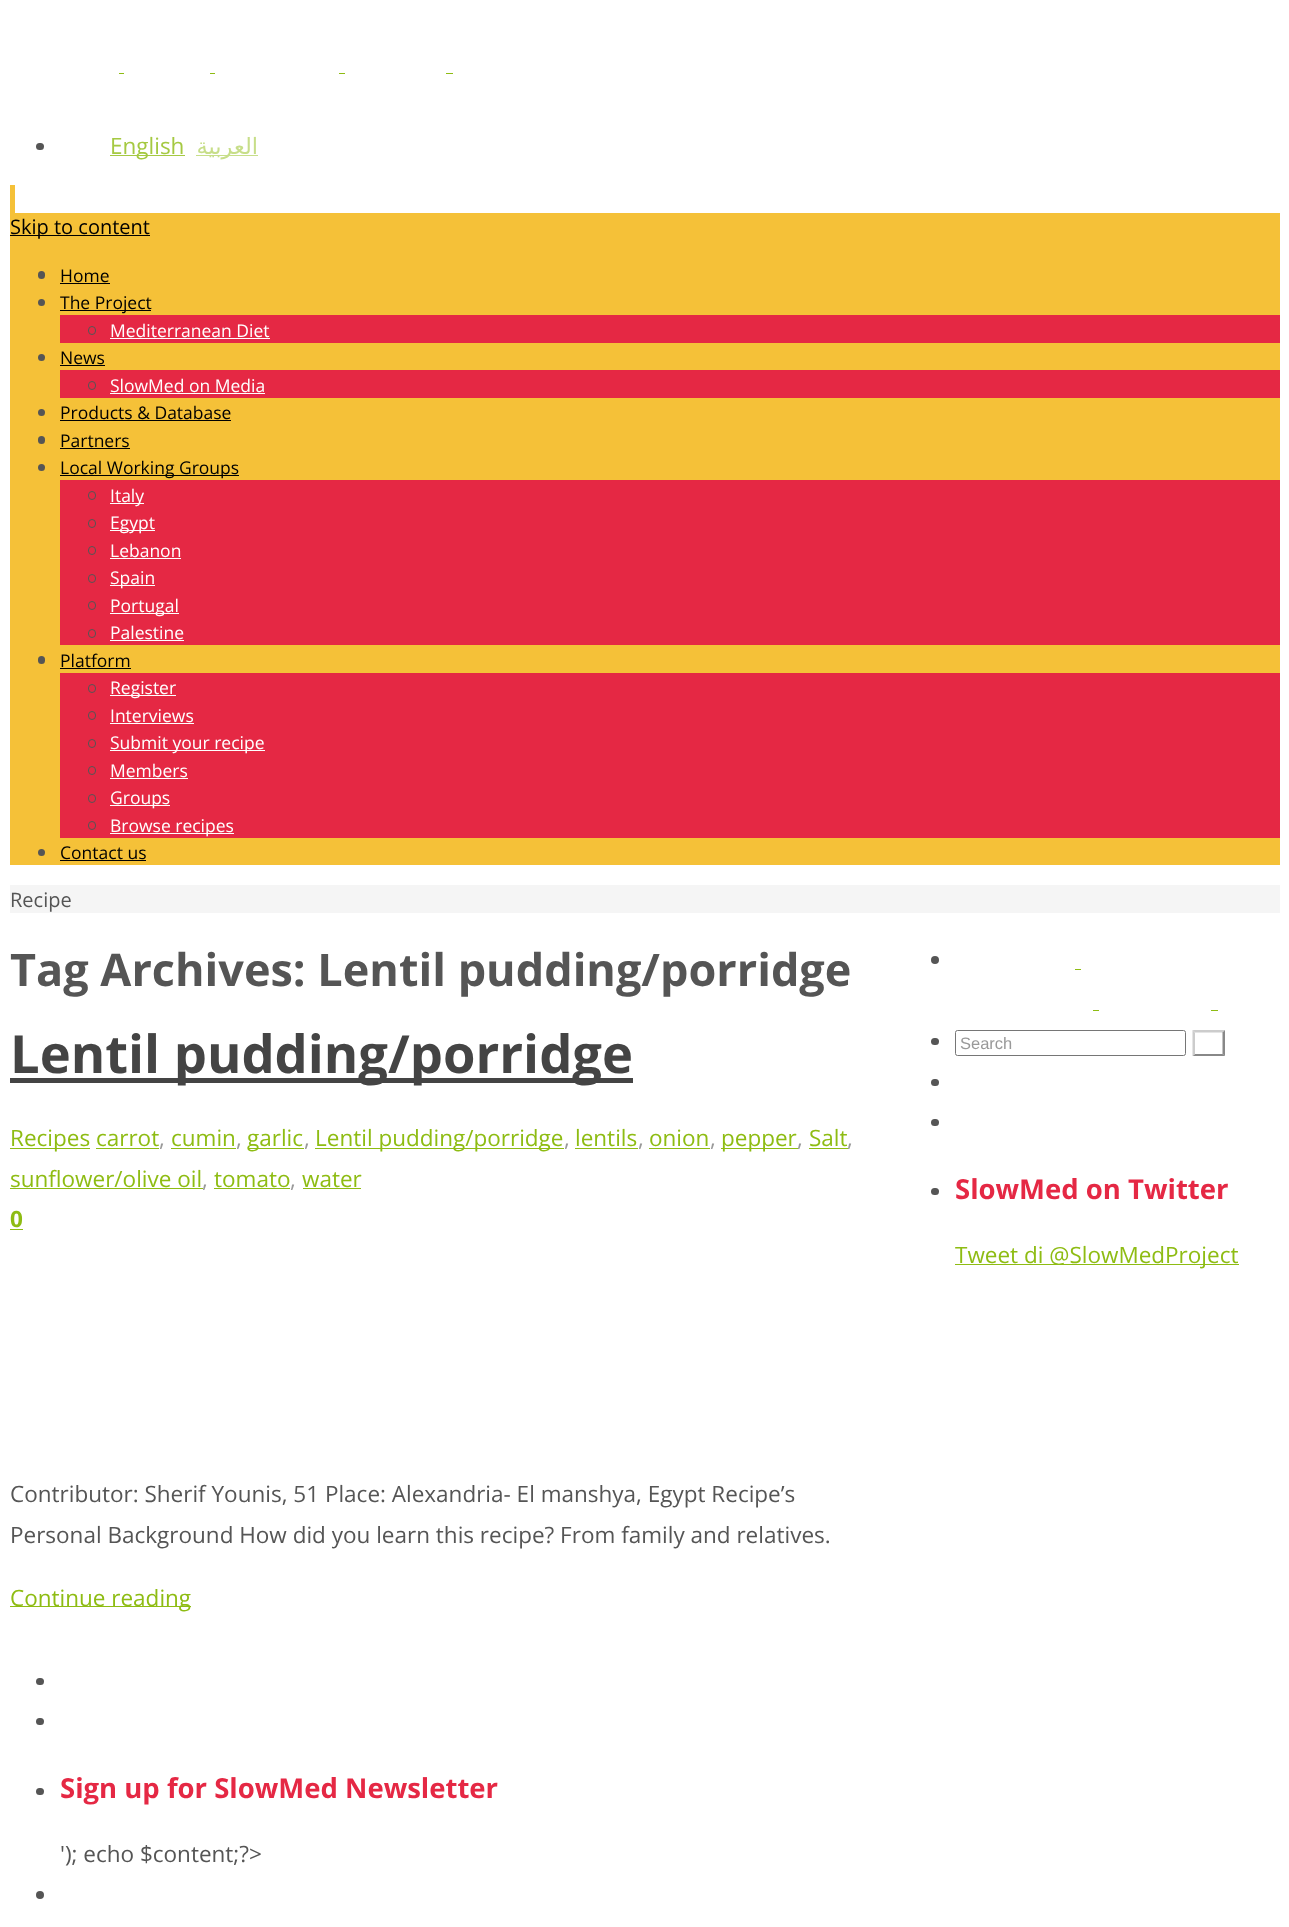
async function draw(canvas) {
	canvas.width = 1289;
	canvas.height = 1927;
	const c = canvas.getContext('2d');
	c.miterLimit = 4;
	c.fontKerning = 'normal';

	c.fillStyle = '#fff';
	c.fillRect(0, 0, 1289, 1927);
	for (const [x, y, w, h, color] of [
		[119, 73, 5, 1, '#8ebc13'],
		[210, 73, 5, 1, '#8ebc13'],
		[339, 73, 6, 1, '#8ebc13'],
		[446, 73, 7, 1, '#8ebc13'],
	]) {
		c.fillStyle = color;
		c.fillRect(x, y, w, h);
	}
	c.fillStyle = '#555';
	c.beginPath();
	c.roundRect(36, 143, 8, 7, 3.5);
	c.fill();
	c.fillStyle = '#a5c942';
	c.fillRect(110, 155, 75, 1);
	c.font = '22.5px Open Sans';
	c.fillText('English', 110, 154);
	c.fillStyle = '#c7de89';
	c.fillRect(196, 155, 62, 1);
	c.direction = 'rtl';
	c.font = '22.5px DejaVu Sans';
	c.fillText('العربية', 258, 154);
	for (const [x, y, w, h, color] of [
		[10, 185, 5, 28, '#f5c138'],
		[10, 213, 1270, 652, '#f5c138'],
		[10, 235, 140, 1, '#000'],
	]) {
		c.fillStyle = color;
		c.fillRect(x, y, w, h);
	}
	c.direction = 'ltr';
	c.font = '20px Open Sans';
	c.fillText('Skip to content', 10, 234);
	c.fillStyle = '#555';
	c.beginPath();
	c.roundRect(38, 271, 7, 8, 3.5);
	c.fill();
	c.font = '17.5px Open Sans';
	c.fillStyle = '#000';
	c.fillText('Home', 60, 282);
	c.fillRect(60, 283, 50, 1);
	c.fillStyle = '#555';
	c.beginPath();
	c.arc(41.5, 302.5, 3.5, 0, 2 * Math.PI);
	c.fill();
	c.fillStyle = '#000';
	c.fillRect(60, 310, 91, 1);
	c.fillText('The Project', 60, 309);
	c.fillStyle = '#e52844';
	c.fillRect(60, 315, 1220, 28);
	c.beginPath();
	c.roundRect(88.5, 326.5, 7, 8, 3.5);
	c.strokeStyle = '#555';
	c.stroke();
	c.fillStyle = '#fff';
	c.fillText('Mediterranean Diet', 110, 337);
	c.fillRect(110, 338, 160, 1);
	c.fillStyle = '#555';
	c.beginPath();
	c.arc(41.5, 357.5, 3.5, 0, 2 * Math.PI);
	c.fill();
	c.fillStyle = '#000';
	c.fillText('News', 60, 364);
	c.fillRect(60, 365, 45, 1);
	c.fillStyle = '#e52844';
	c.fillRect(60, 370, 1220, 28);
	c.beginPath();
	c.roundRect(88.5, 381.5, 7, 8, 3.5);
	c.stroke();
	c.fillStyle = '#fff';
	c.fillText('SlowMed on Media', 110, 392);
	c.fillRect(110, 393, 155, 1);
	c.fillStyle = '#555';
	c.beginPath();
	c.arc(41.5, 412.5, 3.5, 0, 2 * Math.PI);
	c.fill();
	c.fillStyle = '#000';
	c.fillText('Products & Database', 60, 419);
	c.fillRect(60, 420, 171, 1);
	c.fillStyle = '#555';
	c.beginPath();
	c.roundRect(38, 436, 7, 8, 3.5);
	c.fill();
	c.fillStyle = '#000';
	c.fillText('Partners', 60, 447);
	c.fillRect(60, 448, 70, 1);
	c.fillStyle = '#555';
	c.beginPath();
	c.arc(41.5, 467.5, 3.5, 0, 2 * Math.PI);
	c.fill();
	c.fillStyle = '#000';
	c.fillRect(60, 475, 179, 1);
	c.fillText('Local Working Groups', 60, 474);
	c.fillStyle = '#e52844';
	c.fillRect(60, 480, 1220, 165);
	c.beginPath();
	c.roundRect(88.5, 491.5, 7, 8, 3.5);
	c.stroke();
	c.fillStyle = '#fff';
	c.fillRect(110, 503, 34, 1);
	c.fillText('Italy', 110, 502);
	c.beginPath();
	c.roundRect(88.5, 519.5, 7, 8, 3.5);
	c.stroke();
	c.fillRect(110, 530, 45, 1);
	c.fillText('Egypt', 110, 529);
	c.beginPath();
	c.roundRect(88.5, 546.5, 7, 8, 3.5);
	c.stroke();
	c.fillText('Lebanon', 110, 557);
	c.fillRect(110, 558, 71, 1);
	c.beginPath();
	c.roundRect(88.5, 574.5, 7, 8, 3.5);
	c.stroke();
	c.fillRect(110, 585, 45, 1);
	c.fillText('Spain', 110, 584);
	c.beginPath();
	c.roundRect(88.5, 601.5, 7, 8, 3.5);
	c.stroke();
	c.fillRect(110, 613, 69, 1);
	c.fillText('Portugal', 110, 612);
	c.beginPath();
	c.roundRect(88.5, 629.5, 7, 8, 3.5);
	c.stroke();
	c.fillText('Palestine', 110, 639);
	c.fillRect(110, 640, 74, 1);
	c.fillStyle = '#555';
	c.beginPath();
	c.roundRect(38, 656, 7, 8, 3.5);
	c.fill();
	c.fillStyle = '#000';
	c.fillText('Platform', 60, 667);
	c.fillRect(60, 668, 71, 1);
	c.fillStyle = '#e52844';
	c.fillRect(60, 673, 1220, 165);
	c.beginPath();
	c.roundRect(88.5, 684.5, 7, 8, 3.5);
	c.stroke();
	c.fillStyle = '#fff';
	c.fillRect(110, 695, 66, 1);
	c.fillText('Register', 110, 694);
	c.beginPath();
	c.roundRect(88.5, 711.5, 7, 8, 3.5);
	c.stroke();
	c.fillText('Interviews', 110, 722);
	c.fillRect(110, 723, 84, 1);
	c.beginPath();
	c.roundRect(88.5, 739.5, 7, 8, 3.5);
	c.stroke();
	c.fillRect(110, 750, 155, 1);
	c.fillText('Submit your recipe', 110, 749);
	c.beginPath();
	c.roundRect(88.5, 766.5, 7, 8, 3.5);
	c.stroke();
	c.fillText('Members', 110, 777);
	c.fillRect(110, 778, 78, 1);
	c.beginPath();
	c.roundRect(88.5, 794.5, 7, 8, 3.5);
	c.stroke();
	c.fillRect(110, 805, 60, 1);
	c.fillText('Groups', 110, 804);
	c.beginPath();
	c.roundRect(88.5, 821.5, 7, 8, 3.5);
	c.stroke();
	c.fillRect(110, 833, 124, 1);
	c.fillText('Browse recipes', 110, 832);
	c.fillStyle = '#555';
	c.beginPath();
	c.arc(41.5, 852.5, 3.5, 0, 2 * Math.PI);
	c.fill();
	c.fillStyle = '#000';
	c.fillText('Contact us', 60, 859);
	c.fillRect(60, 860, 86, 1);
	c.fillStyle = '#f5f5f5';
	c.fillRect(10, 885, 1270, 28);
	c.font = '20px Open Sans';
	c.fillStyle = '#555';
	c.fillText('Recipe', 10, 907);
	c.font = 'bold 45px Open Sans';
	c.fillText('Tag Archives: Lentil pudding/porridge', 10, 986);
	c.fillStyle = '#444';
	c.fillRect(10, 1078, 623, 5);
	c.font = 'bold 52.5px Open Sans';
	c.fillText('Lentil pudding/porridge', 10, 1073);
	c.fillStyle = '#8ebc13';
	c.fillRect(10, 1148, 80, 1);
	c.font = '22.5px Open Sans';
	c.fillText('Recipes carrot', 10, 1146);
	c.fillStyle = '#999';
	c.fillText(',', 159, 1146);
	c.fillStyle = '#8ebc13';
	c.fillRect(96, 1148, 63, 1);
	c.fillText('cumin', 171, 1146);
	c.fillStyle = '#999';
	c.fillText(',', 236, 1146);
	c.fillStyle = '#8ebc13';
	c.fillRect(171, 1148, 65, 1);
	c.fillRect(248, 1148, 56, 1);
	c.fillText('garlic', 247, 1146);
	c.fillStyle = '#999';
	c.fillText(',', 304, 1146);
	c.fillStyle = '#8ebc13';
	c.fillRect(315, 1148, 249, 1);
	c.fillText('Lentil pudding/porridge', 315, 1146);
	c.fillStyle = '#999';
	c.fillText(',', 564, 1146);
	c.fillStyle = '#8ebc13';
	c.fillText('lentils', 575, 1146);
	c.fillStyle = '#999';
	c.fillText(',', 638, 1146);
	c.fillStyle = '#8ebc13';
	c.fillRect(575, 1148, 63, 1);
	c.fillText('onion', 649, 1146);
	c.fillStyle = '#999';
	c.fillText(',', 710, 1146);
	c.fillStyle = '#8ebc13';
	c.fillRect(649, 1148, 61, 1);
	c.fillRect(721, 1148, 77, 1);
	c.fillText('pepper', 721, 1146);
	c.fillStyle = '#999';
	c.fillText(',', 797, 1146);
	c.fillStyle = '#8ebc13';
	c.fillText('Salt', 809, 1146);
	c.fillStyle = '#999';
	c.fillText(',', 847, 1146);
	c.fillStyle = '#8ebc13';
	c.fillRect(809, 1148, 39, 1);
	c.fillText('sunflower/olive oil', 10, 1187);
	c.fillStyle = '#999';
	c.fillText(',', 202, 1187);
	c.fillStyle = '#8ebc13';
	c.fillRect(10, 1188, 193, 1);
	c.fillText('tomato', 214, 1187);
	c.fillStyle = '#999';
	c.fillText(',', 290, 1187);
	c.fillStyle = '#8ebc13';
	c.fillRect(214, 1188, 76, 1);
	c.fillRect(303, 1188, 58, 1);
	c.fillText('water', 302, 1187);
	c.font = 'bold 22.5px Open Sans';
	c.fillText('0', 10, 1227);
	c.fillRect(10, 1229, 13, 1);
	c.font = '22.5px Open Sans';
	c.fillStyle = '#555';
	c.fillText('Contributor: Sherif Younis, 51 Place: Alexandria- El manshya, Egypt Recipe’s', 10, 1502);
	c.fillText('Personal Background How did you learn this recipe? From family and relatives.', 10, 1543);
	c.fillStyle = '#8ebc13';
	c.fillRect(10, 1606, 181, 1);
	c.fillText('Continue reading', 10, 1606);
	c.fillStyle = '#555';
	c.beginPath();
	c.arc(935, 960, 4, 0, 2 * Math.PI);
	c.fill();
	for (const [x, y, w, h, color] of [
		[1075, 969, 6, 1, '#8ebc13'],
		[1093, 1010, 6, 1, '#8ebc13'],
		[1211, 1010, 7, 1, '#8ebc13'],
	]) {
		c.fillStyle = color;
		c.fillRect(x, y, w, h);
	}
	c.fillStyle = '#555';
	c.beginPath();
	c.roundRect(931, 1038, 8, 7, 3.5);
	c.fill();
	c.beginPath();
	c.roundRect(955.5, 1030.5, 230, 25, 2);
	c.strokeStyle = '#767676';
	c.stroke();
	c.font = '16.5px Liberation Sans';
	c.fillStyle = '#999';
	c.fillText('Search', 960, 1049);
	c.fillStyle = '#ccc';
	c.beginPath();
	c.moveTo(1192.5, 1030);
	c.lineTo(1225, 1030);
	c.lineTo(1222.5, 1032.5);
	c.lineTo(1195, 1032.5);
	c.closePath();
	c.fill();
	c.fillStyle = '#888';
	c.beginPath();
	c.moveTo(1225, 1030);
	c.lineTo(1225, 1056);
	c.lineTo(1222.5, 1054);
	c.lineTo(1222.5, 1032.5);
	c.closePath();
	c.fill();
	c.beginPath();
	c.moveTo(1225, 1056);
	c.lineTo(1192.5, 1056);
	c.lineTo(1195, 1054);
	c.lineTo(1222.5, 1054);
	c.closePath();
	c.fill();
	c.fillStyle = '#ccc';
	c.beginPath();
	c.moveTo(1192.5, 1056);
	c.lineTo(1192.5, 1030);
	c.lineTo(1195, 1032.5);
	c.lineTo(1195, 1054);
	c.closePath();
	c.fill();
	c.fillStyle = '#555';
	c.beginPath();
	c.roundRect(931, 1079, 8, 7, 3.5);
	c.fill();
	c.beginPath();
	c.roundRect(931, 1119, 8, 7, 3.5);
	c.fill();
	c.beginPath();
	c.roundRect(931, 1188, 8, 7, 3.5);
	c.fill();
	c.font = 'bold 27.5px Open Sans';
	c.fillStyle = '#e52844';
	c.fillText('SlowMed on Twitter', 955, 1199);
	c.fillStyle = '#8ebc13';
	c.fillRect(955, 1264, 284, 1);
	c.font = '22.5px Open Sans';
	c.fillText('Tweet di @SlowMedProject', 955, 1263);
	c.fillStyle = '#555';
	c.beginPath();
	c.roundRect(36, 1678, 8, 7, 3.5);
	c.fill();
	c.beginPath();
	c.roundRect(36, 1718, 8, 7, 3.5);
	c.fill();
	c.beginPath();
	c.roundRect(36, 1788, 8, 7, 3.5);
	c.fill();
	c.font = 'bold 27.5px Open Sans';
	c.fillStyle = '#e52844';
	c.fillText('Sign up for SlowMed Newsletter', 60, 1798);
	c.font = '22.5px Open Sans';
	c.fillStyle = '#555';
	c.fillText('\'); echo $content;?>', 60, 1862);
	c.beginPath();
	c.arc(40, 1895, 4, 0, 2 * Math.PI);
	c.fill();
}

draw(document.querySelector('canvas'));
